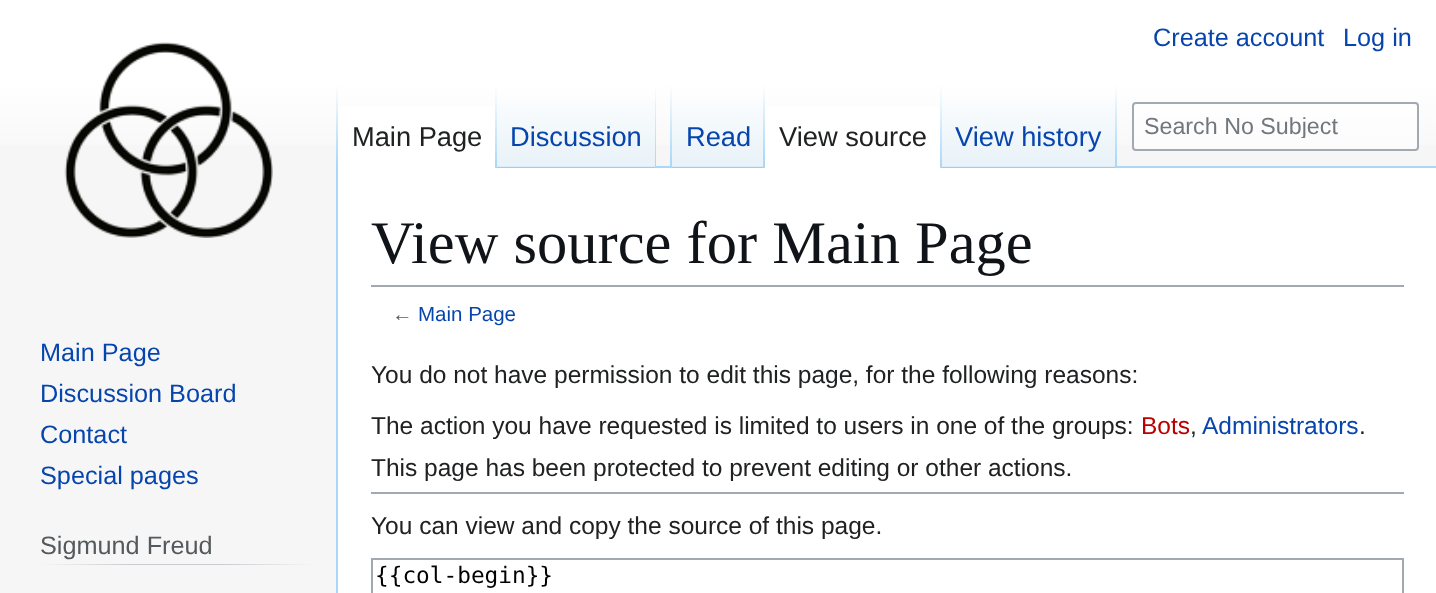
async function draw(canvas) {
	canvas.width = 1436;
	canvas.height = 593;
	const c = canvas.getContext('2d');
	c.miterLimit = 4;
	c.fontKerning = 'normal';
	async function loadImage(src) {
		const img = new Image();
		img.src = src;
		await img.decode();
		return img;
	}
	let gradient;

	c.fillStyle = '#f6f6f6';
	c.fillRect(0, 0, 1436, 593);
	gradient = c.createLinearGradient(718, 0, 718, 168);
	gradient.addColorStop(0.5, '#fff');
	gradient.addColorStop(1, '#f6f6f6');
	c.fillStyle = gradient;
	c.fillRect(0, 0, 1436, 145);
	c.font = '25.25px Liberation Sans';
	c.fillStyle = '#0645ad';
	c.fillText('Create account', 1153, 46);
	c.fillText('Log in', 1343, 46);
	c.fillStyle = '#a7d7f9';
	c.fillRect(336, 166, 2, 427);
	gradient = c.createLinearGradient(337, 84, 337, 168);
	gradient.addColorStop(0, '#a7d7f900');
	gradient.addColorStop(1, '#a7d7f9');
	c.fillStyle = gradient;
	c.fillRect(336, 84, 2, 84);
	c.fillStyle = '#fff';
	c.fillRect(338, 107, 157, 61);
	gradient = c.createLinearGradient(496, 84, 496, 168);
	gradient.addColorStop(0, '#fff');
	gradient.addColorStop(1, '#a7d7f9');
	c.fillStyle = gradient;
	c.fillRect(495, 84, 2, 84);
	c.font = '27.25px Liberation Sans';
	c.fillStyle = '#202122';
	c.fillText('Main Page', 352, 146);
	gradient = c.createLinearGradient(577, 168, 577, 84);
	gradient.addColorStop(0, '#77c1f6');
	gradient.addColorStop(0.02, '#e8f2f8');
	gradient.addColorStop(1, '#fff');
	c.fillStyle = gradient;
	c.fillRect(497, 97, 159, 71);
	gradient = c.createLinearGradient(655, 84, 655, 168);
	gradient.addColorStop(0, '#a7d7f900');
	gradient.addColorStop(1, '#a7d7f9');
	c.fillStyle = gradient;
	c.fillRect(655, 84, 1, 84);
	c.fillStyle = '#0645ad';
	c.fillText('Discussion', 510, 146);
	c.fillStyle = '#a7d7f9';
	c.fillRect(656, 166, 780, 2);
	gradient = c.createLinearGradient(671, 84, 671, 168);
	gradient.addColorStop(0, '#a7d7f900');
	gradient.addColorStop(1, '#a7d7f9');
	c.fillStyle = gradient;
	c.fillRect(670, 84, 2, 84);
	gradient = c.createLinearGradient(718, 168, 718, 84);
	gradient.addColorStop(0, '#77c1f6');
	gradient.addColorStop(0.02, '#e8f2f8');
	gradient.addColorStop(1, '#fff');
	c.fillStyle = gradient;
	c.fillRect(672, 97, 93, 71);
	gradient = c.createLinearGradient(764, 84, 764, 168);
	gradient.addColorStop(0, '#a7d7f900');
	gradient.addColorStop(1, '#a7d7f9');
	c.fillStyle = gradient;
	c.fillRect(763, 84, 2, 84);
	c.fillStyle = '#0645ad';
	c.fillText('Read', 686, 146);
	c.fillStyle = '#fff';
	c.fillRect(765, 107, 175, 61);
	gradient = c.createLinearGradient(941, 84, 941, 168);
	gradient.addColorStop(0, '#fff');
	gradient.addColorStop(1, '#a7d7f9');
	c.fillStyle = gradient;
	c.fillRect(940, 84, 2, 84);
	c.fillStyle = '#202122';
	c.fillText('View source', 779, 146);
	gradient = c.createLinearGradient(1029, 168, 1029, 84);
	gradient.addColorStop(0, '#77c1f6');
	gradient.addColorStop(0.02, '#e8f2f8');
	gradient.addColorStop(1, '#fff');
	c.fillStyle = gradient;
	c.fillRect(942, 97, 175, 71);
	gradient = c.createLinearGradient(1116, 84, 1116, 168);
	gradient.addColorStop(0, '#a7d7f900');
	gradient.addColorStop(1, '#a7d7f9');
	c.fillStyle = gradient;
	c.fillRect(1115, 84, 2, 84);
	c.fillStyle = '#0645ad';
	c.fillText('View history', 955, 146);
	c.fillStyle = '#ffffff80';
	c.beginPath();
	c.roundRect(1133, 103, 285, 47, 3);
	c.fill();
	c.strokeStyle = '#a2a9b1';
	c.lineWidth = 2;
	c.stroke();
	c.save();
	c.beginPath();
	c.rect(1145, 112, 224, 26);
	c.clip();
	c.font = '23.25px Liberation Sans';
	c.fillStyle = '#72777d';
	c.fillText('Search No Subject', 1144, 134);
	c.restore();
	c.drawImage(await loadImage('img1.png'), 64, 42, 209, 196);
	c.font = '25.25px Liberation Sans';
	c.fillStyle = '#0645ad';
	for (const [text, x, y] of [
		['Main Page', 40, 361],
		['Discussion Board', 40, 402],
		['Contact', 40, 443],
		['Special pages', 40, 484],
	]) {
		c.fillText(text, x, y);
	}
	gradient = c.createLinearGradient(40, 564, 315, 564);
	gradient.addColorStop(0, '#f6f6f6');
	gradient.addColorStop(0.33, '#c8ccd1');
	gradient.addColorStop(0.66, '#c8ccd1');
	gradient.addColorStop(1, '#f6f6f6');
	c.fillStyle = gradient;
	c.fillRect(40, 564, 275, 1);
	c.fillStyle = '#54595d';
	c.fillText('Sigmund Freud', 40, 554);
	c.fillStyle = '#fff';
	c.fillRect(338, 168, 1098, 425);
	c.fillStyle = '#a2a9b1';
	c.fillRect(371, 285, 1033, 2);
	c.font = '60.5px Liberation Serif';
	c.fillStyle = '#101418';
	c.fillText('View source for Main Page', 371, 263);
	c.font = '20.5px Liberation Sans';
	c.fillStyle = '#54595d';
	c.fillText('←', 392, 321);
	c.fillStyle = '#0645ad';
	c.fillText('Main Page', 418, 321);
	c.font = '24.5px Liberation Sans';
	c.fillStyle = '#202122';
	c.fillText('You do not have permission to edit this page, for the following reasons:', 371, 383);
	c.fillText('The action you have requested is limited to users in one of the groups:', 371, 434);
	c.fillStyle = '#ba0000';
	c.fillText('Bots', 1141, 434);
	c.fillStyle = '#202122';
	c.fillText(',', 1190, 434);
	c.fillStyle = '#0645ad';
	c.fillText('Administrators', 1202, 434);
	c.fillStyle = '#202122';
	c.fillText('.', 1359, 434);
	c.fillText('This page has been protected to prevent editing or other actions.', 371, 476);
	c.fillStyle = '#a2a9b1';
	c.fillRect(371, 492, 1033, 2);
	c.fillStyle = '#202122';
	c.fillText('You can view and copy the source of this page.', 371, 534);
	c.strokeRect(372, 559, 1031, 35);
	c.font = '22.75px DejaVu Sans Mono';
	c.fillStyle = '#000';
	c.fillText('{{col-begin}}', 375, 583);
}

draw(document.querySelector('canvas'));
